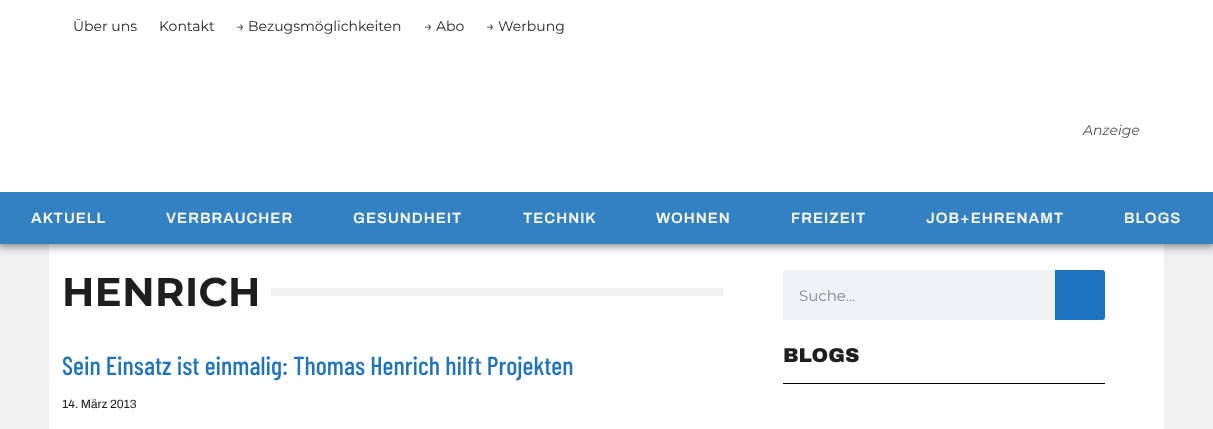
async function draw(canvas) {
	canvas.width = 1213;
	canvas.height = 429;
	const c = canvas.getContext('2d');
	c.miterLimit = 4;
	c.fontKerning = 'normal';

	c.fillStyle = '#f0f0f0';
	c.fillRect(0, 0, 1213, 429);
	c.fillStyle = '#fff';
	c.fillRect(0, 0, 1213, 32);
	c.font = '14px Montserrat';
	c.fillStyle = '#1e1e1e';
	c.fillText('Über uns', 73, 31);
	c.fillText('Kontakt', 159, 31);
	c.fillStyle = '#fff';
	c.fillRect(49, 244, 1115, 185);
	c.fillStyle = '#00000080';
	c.filter = 'blur(5px)';
	c.beginPath();
	c.rect(-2, 190, 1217, 56);
	c.fill();
	c.filter = 'none';
	c.fillStyle = '#fff';
	c.fillRect(0, 32, 1213, 160);
	c.fillStyle = '#1e1e1e';
	for (const [text, x, y] of [
		['→ Bezugsmöglichkeiten', 236, 31],
		['→ Abo', 424, 31],
		['→ Werbung', 486, 31],
	]) {
		c.fillText(text, x, y);
	}
	c.font = 'italic 14px Montserrat';
	c.fillStyle = '#525252';
	c.fillText('Anzeige', 1083, 135);
	c.fillStyle = '#3380c3';
	c.fillRect(0, 192, 1213, 52);
	c.letterSpacing = '1px';
	c.font = '600 15px Archivo';
	c.fillStyle = '#fff';
	for (const [text, x, y] of [
		['AKTUELL', 31, 223],
		['VERBRAUCHER', 166, 223],
		['GESUNDHEIT', 353, 223],
		['TECHNIK', 523, 223],
		['WOHNEN', 656, 223],
		['FREIZEIT', 791, 223],
		['JOB+EHRENAMT', 926, 223],
		['BLOGS', 1124, 223],
	]) {
		c.fillText(text, x, y);
	}
	c.letterSpacing = '0.5px';
	c.font = 'bold 40px Montserrat';
	c.fillStyle = '#1e1e1e';
	c.fillText('HENRICH', 62, 306);
	c.fillStyle = '#f0f0f0';
	c.fillRect(271, 288, 452, 8);
	c.letterSpacing = '0px';
	c.font = '500 26px Barlow Condensed';
	c.fillStyle = '#1e73be';
	c.fillText('Sein Einsatz ist einmalig: Thomas Henrich hilft Projekten', 62, 375);
	c.font = '12px Archivo';
	c.fillStyle = '#1e1e1e';
	c.fillText('14. März 2013', 62, 408);
	c.fillStyle = '#f1f2f3';
	c.beginPath();
	c.roundRect(783, 270, 322, 50, 3);
	c.fill();
	c.font = '15px Montserrat';
	c.fillStyle = '#868a8e';
	c.fillText('Suche...', 799, 301);
	c.fillStyle = '#1e73be';
	c.beginPath();
	c.roundRect(1055, 270, 50, 50, [0, 3, 3, 0]);
	c.fill();
	c.font = '20px Archivo Black';
	c.fillStyle = '#1e1e1e';
	c.fillText('BLOGS', 783, 362);
	c.fillStyle = '#000';
	c.fillRect(783, 383, 322, 1);
}

draw(document.querySelector('canvas'));
